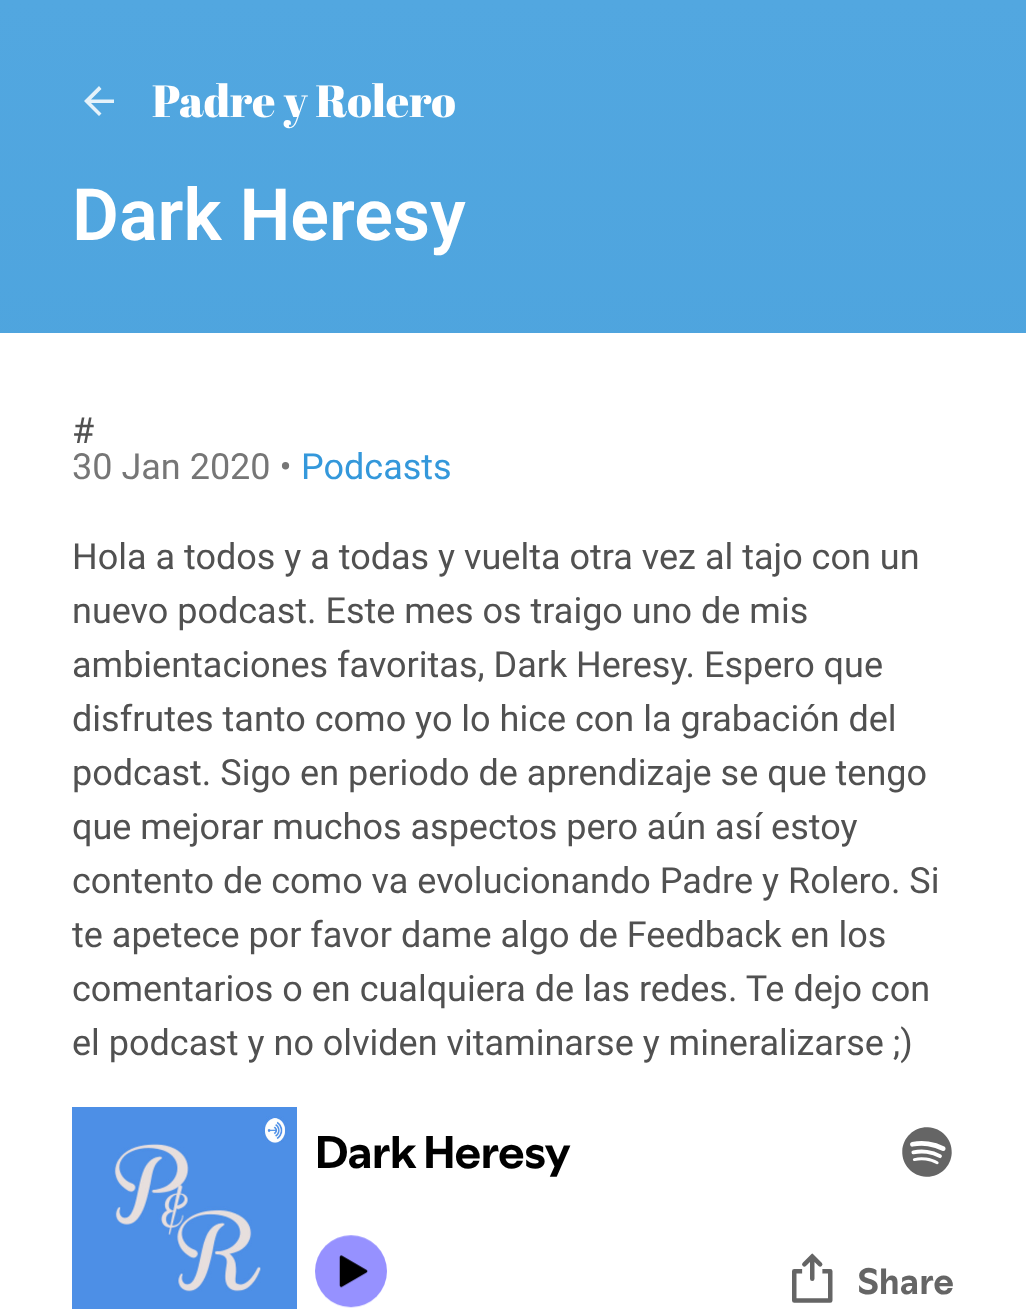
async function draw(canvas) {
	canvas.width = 1026;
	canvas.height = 1309;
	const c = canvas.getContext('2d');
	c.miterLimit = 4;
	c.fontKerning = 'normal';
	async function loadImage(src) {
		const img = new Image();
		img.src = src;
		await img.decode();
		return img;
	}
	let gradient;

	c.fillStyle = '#fff';
	c.fillRect(0, 0, 1026, 1309);
	gradient = c.createLinearGradient(513, 0, 513, 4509);
	gradient.addColorStop(0, '#52a7e0');
	gradient.addColorStop(1, '#2386c8');
	c.fillStyle = gradient;
	c.fillRect(0, 0, 1026, 333);
	c.font = '45px Abril Fatface';
	c.fillStyle = '#fff';
	c.fillText('Padre y Rolero', 152, 117);
	c.fillStyle = '#e5f2fa';
	c.beginPath();
	c.moveTo(114, 99.5);
	c.lineTo(91, 99.5);
	c.lineTo(101.5, 89);
	c.lineTo(99, 86);
	c.lineTo(84, 101);
	c.lineTo(99, 116);
	c.lineTo(101.5, 113.5);
	c.lineTo(91, 103);
	c.lineTo(114, 103);
	c.closePath();
	c.fill();
	c.font = '600 72px Roboto';
	c.fillStyle = '#fff';
	c.fillText('Dark Heresy', 72, 240);
	c.font = '36px Roboto';
	c.fillStyle = '#515151';
	c.fillText('#', 72, 443);
	c.fillStyle = '#767676';
	c.fillText('30 Jan 2020 •', 72, 479);
	c.fillStyle = '#3498db';
	c.fillText('Podcasts', 301, 479);
	c.fillStyle = '#515151';
	for (const [text, x, y] of [
		['Hola a todos y a todas y vuelta otra vez al tajo con un', 72, 569],
		['nuevo podcast. Este mes os traigo uno de mis', 72, 623],
		['ambientaciones favoritas, Dark Heresy. Espero que', 72, 677],
		['disfrutes tanto como yo lo hice con la grabación del', 72, 731],
		['podcast. Sigo en periodo de aprendizaje se que tengo', 72, 785],
		['que mejorar muchos aspectos pero aún así estoy', 72, 839],
		['contento de como va evolucionando Padre y Rolero. Si', 72, 893],
		['te apetece por favor dame algo de Feedback en los', 72, 947],
		['comentarios o en cualquiera de las redes. Te dejo con', 72, 1001],
		['el podcast y no olviden vitaminarse y mineralizarse ;)', 72, 1055],
	]) {
		c.fillText(text, x, y);
	}
	c.drawImage(await loadImage('img1.png'), 72, 1107, 881, 202);
}

draw(document.querySelector('canvas'));
